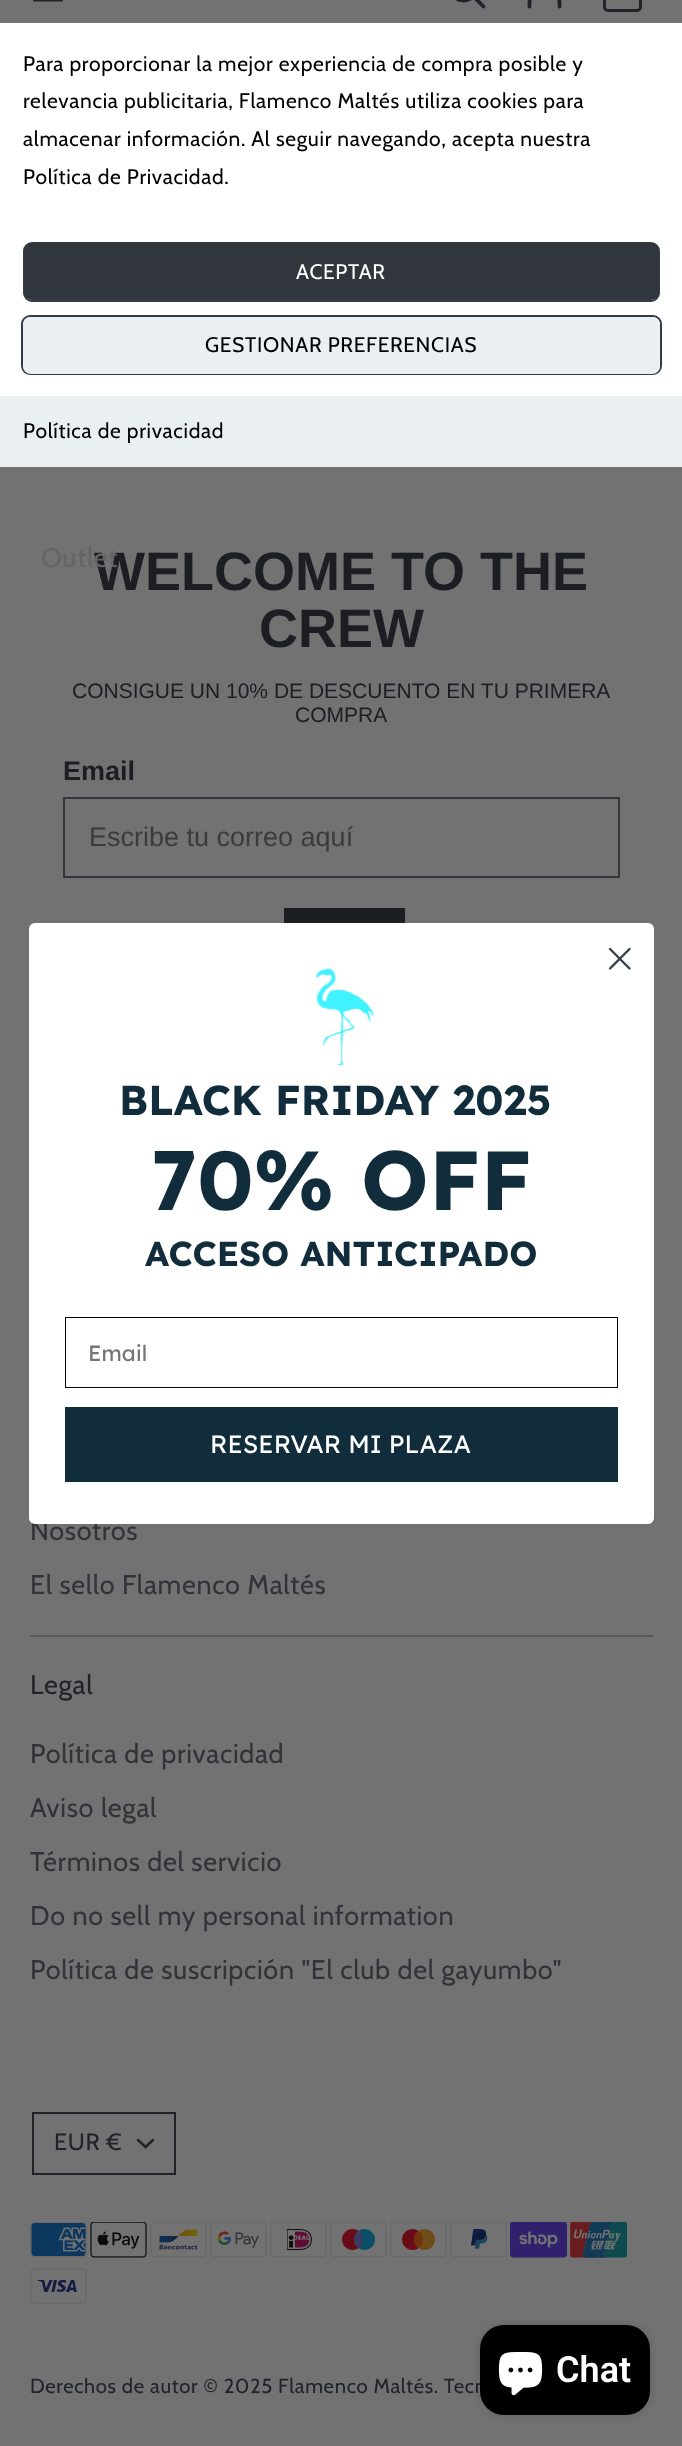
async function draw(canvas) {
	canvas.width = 682;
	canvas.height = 2446;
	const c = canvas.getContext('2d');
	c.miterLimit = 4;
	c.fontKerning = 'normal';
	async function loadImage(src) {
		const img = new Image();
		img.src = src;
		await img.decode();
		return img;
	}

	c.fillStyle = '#727272';
	c.fillRect(0, 0, 682, 2446);
	c.fillStyle = '#fff';
	c.fillRect(0, 23, 682, 373);
	c.letterSpacing = '0.68px';
	c.font = '21px Cabin';
	c.fillStyle = '#000';
	for (const [text, x, y] of [
		['Para proporcionar la mejor experiencia de compra posible y', 23, 71],
		['relevancia publicitaria, Flamenco Maltés utiliza cookies para', 23, 108],
		['almacenar información. Al seguir navegando, acepta nuestra', 23, 146],
		['Política de Privacidad.', 23, 184],
	]) {
		c.fillText(text, x, y);
	}
	c.beginPath();
	c.roundRect(24, 243, 635, 58, 8);
	c.strokeStyle = '#353a4d';
	c.lineWidth = 2;
	c.stroke();
	c.fillStyle = '#30363c';
	c.beginPath();
	c.roundRect(24, 243, 635, 57, 8);
	c.fill();
	c.fillStyle = '#fff';
	c.fillText('ACEPTAR', 296, 279);
	c.beginPath();
	c.roundRect(22, 316, 639, 58, 8);
	c.stroke();
	c.fillStyle = '#eaeff2';
	c.beginPath();
	c.roundRect(23, 317, 637, 57, 8);
	c.fill();
	c.fillStyle = '#000';
	c.fillText('GESTIONAR PREFERENCIAS', 205, 352);
	for (const [x, y, w, h, color] of [
		[0, 398, 682, 67, '#eaeff2'],
		[0, 396, 682, 2, '#eee'],
		[0, 465, 682, 2, '#eee'],
	]) {
		c.fillStyle = color;
		c.fillRect(x, y, w, h);
	}
	c.fillStyle = '#000';
	c.fillText('Política de privacidad', 23, 438);
	c.beginPath();
	c.moveTo(34.5, -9);
	c.lineTo(61.5, -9);
	c.moveTo(34.5, -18);
	c.lineTo(61.5, -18);
	c.moveTo(34.5, 0);
	c.lineTo(61.5, 0);
	c.strokeStyle = '#21232b';
	c.lineWidth = 3;
	c.lineCap = 'round';
	c.stroke();
	c.beginPath();
	c.arc(463.5, -13.5, 14, 0, 2 * Math.PI);
	c.lineWidth = 3.8;
	c.stroke();
	c.beginPath();
	c.moveTo(483.5, 6.5);
	c.lineTo(473.5, -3.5);
	c.stroke();
	c.beginPath();
	c.moveTo(559.5, 6.5);
	c.lineTo(559.5, 1);
	c.bezierCurveTo(558, -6, 550, -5, 544.5, -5);
	c.bezierCurveTo(539, -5, 531, -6, 529.5, 1);
	c.lineTo(529.5, 6.5);
	c.stroke();
	c.beginPath();
	c.roundRect(604.5, -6.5, 36, 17, 3.5);
	c.lineWidth = 3;
	c.stroke();
	c.letterSpacing = '0px';
	c.font = 'bold 54px Liberation Sans';
	c.fillStyle = '#1c1e24';
	c.fillText('WELCOME TO THE', 94, 590);
	c.letterSpacing = '0.68px';
	c.font = '27px Cabin';
	c.fillStyle = '#656566';
	c.fillText('Outlet', 41, 567);
	c.letterSpacing = '0px';
	c.font = 'bold 54px Liberation Sans';
	c.fillStyle = '#1c1e24';
	c.fillText('CREW', 259, 647);
	c.font = '21px Liberation Sans';
	c.fillText('CONSIGUE UN 10% DE DESCUENTO EN TU PRIMERA', 72, 698);
	c.fillText('COMPRA', 295, 722);
	c.font = 'bold 27px Liberation Sans';
	c.fillText('Email', 63, 780);
	c.strokeStyle = '#32363a';
	c.lineWidth = 2;
	c.strokeRect(64, 798, 555, 79);
	c.font = '27px Liberation Sans';
	c.fillStyle = '#3b3b3b';
	c.fillText('Escribe tu correo aquí', 89, 846);
	c.fillStyle = '#1c1e24';
	c.fillRect(284, 908, 121, 15);
	c.fillStyle = '#5a5a5d';
	c.fillRect(30, 1635, 623, 2);
	c.letterSpacing = '0.68px';
	c.font = '27px Cabin';
	c.fillStyle = '#313339';
	c.fillText('Nosotros', 30, 1540);
	c.fillText('El sello Flamenco Maltés', 30, 1594);
	c.fillStyle = '#21232b';
	c.fillText('Legal', 30, 1694);
	c.fillStyle = '#313339';
	for (const [text, x, y] of [
		['Política de privacidad', 30, 1763],
		['Aviso legal', 30, 1817],
		['Términos del servicio', 30, 1871],
		['Do no sell my personal information', 30, 1925],
		['Política de suscripción "El club del gayumbo"', 30, 1979],
	]) {
		c.fillText(text, x, y);
	}
	c.strokeStyle = '#21232b';
	c.strokeRect(33, 2113, 142, 61);
	c.font = '23.5px Cabin';
	c.fillStyle = '#21232b';
	c.fillText('EUR €', 54, 2150);
	c.beginPath();
	c.moveTo(138, 2140);
	c.lineTo(145.5, 2147);
	c.lineTo(153, 2140);
	c.lineWidth = 2.5;
	c.stroke();
	c.drawImage(await loadImage('img1.png'), 30, 2222, 57, 36);
	c.drawImage(await loadImage('img2.png'), 90, 2222, 57, 36);
	c.drawImage(await loadImage('img3.png'), 150, 2222, 57, 36);
	c.drawImage(await loadImage('img4.png'), 210, 2222, 57, 36);
	c.drawImage(await loadImage('img5.png'), 270, 2222, 57, 36);
	c.drawImage(await loadImage('img6.png'), 330, 2222, 57, 36);
	c.drawImage(await loadImage('img7.png'), 390, 2222, 57, 36);
	c.drawImage(await loadImage('img8.png'), 450, 2222, 57, 36);
	c.drawImage(await loadImage('img9.png'), 510, 2222, 57, 36);
	c.drawImage(await loadImage('img10.png'), 570, 2222, 57, 36);
	c.drawImage(await loadImage('img11.png'), 30, 2268, 57, 36);
	c.font = '20.25px Cabin';
	c.fillText('Derechos de autor © 2025 Flamenco Maltés. Tecn', 30, 2393);
	c.fillStyle = '#fff';
	c.beginPath();
	c.roundRect(29, 923, 625, 601, 6);
	c.fill();
	c.beginPath();
	c.moveTo(610, 949);
	c.lineTo(629.5, 968.5);
	c.moveTo(610, 968.5);
	c.lineTo(629.5, 949);
	c.closePath();
	c.strokeStyle = '#373f47';
	c.lineWidth = 2.4;
	c.lineJoin = 'round';
	c.stroke();
	c.drawImage(await loadImage('img12.png'), 315, 968, 59, 98);
	c.letterSpacing = '0px';
	c.font = 'bold 41.75px Lexend';
	c.fillStyle = '#112d3c';
	c.fillText('BLACK FRIDAY 2025', 119, 1115);
	c.font = 'bold 83.5px Lexend';
	c.fillText('70% OFF', 151, 1210);
	c.font = 'bold 34.75px Lexend';
	c.fillText('ACCESO ANTICIPADO', 145, 1266);
	c.strokeStyle = '#050505';
	c.lineWidth = 1;
	c.lineJoin = 'miter';
	c.strokeRect(65.5, 1317.5, 552, 70);
	c.font = '22px Lexend';
	c.fillStyle = '#767676';
	c.fillText('Email', 88, 1361);
	c.fillStyle = '#112d3c';
	c.fillRect(65, 1407, 553, 75);
	c.font = '25px Lexend';
	c.fillStyle = '#fff';
	c.fillText('RESERVAR MI PLAZA', 210, 1453);
	c.fillStyle = '#00000026';
	c.filter = 'blur(4px)';
	c.beginPath();
	c.roundRect(480, 2325, 170, 90, 24);
	c.fill();
	c.filter = 'none';
	c.fillStyle = '#000';
	c.beginPath();
	c.roundRect(480, 2325, 170, 90, 24);
	c.fill();
	c.drawImage(await loadImage('img13.png'), 498, 2352, 45, 44);
	c.font = '600 36px Roboto';
	c.fillStyle = '#fff';
	c.fillText('Chat', 556, 2382);
}

draw(document.querySelector('canvas'));
